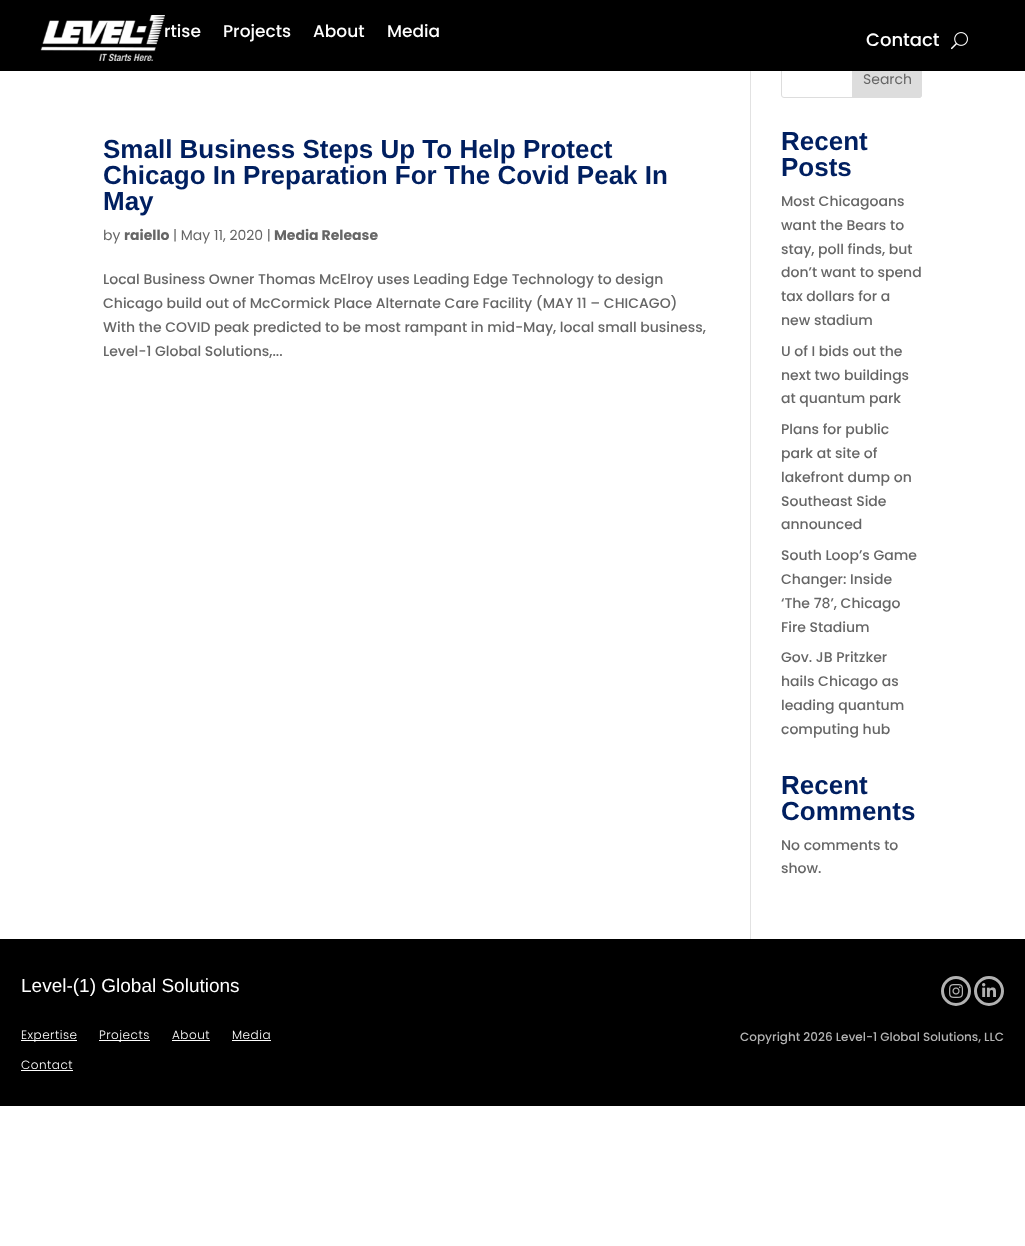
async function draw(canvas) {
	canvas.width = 1025;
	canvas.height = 1246;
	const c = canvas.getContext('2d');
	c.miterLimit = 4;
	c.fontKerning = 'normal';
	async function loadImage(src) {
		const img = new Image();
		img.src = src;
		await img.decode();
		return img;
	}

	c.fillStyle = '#fff';
	c.fillRect(0, 0, 1025, 1246);
	c.beginPath();
	c.roundRect(781.5, 58.5, 140, 39, 2.5);
	c.strokeStyle = '#ddd';
	c.stroke();
	c.fillStyle = '#ddd';
	c.beginPath();
	c.roundRect(852.5, 58.5, 69, 39, [0, 2.5, 2.5, 0]);
	c.fill();
	c.stroke();
	c.fillStyle = '#000';
	c.fillRect(0, 0, 1025, 71);
	c.drawImage(await loadImage('img1.png'), 40, 15, 125, 46);
	c.font = '500 17px Poppins';
	c.fillStyle = '#fff';
	for (const [text, x, y] of [
		['rtise', 164, 37],
		['Projects', 223, 37],
		['About', 313, 37],
		['Media', 387, 37],
	]) {
		c.fillText(text, x, y);
	}
	c.font = '500 18px Poppins';
	c.fillText('Contact', 866, 46);
	c.drawImage(await loadImage('img2.png'), 951, 32, 17, 18);
	c.fillStyle = '#e2e2e2';
	c.fillRect(750, 71, 1, 868);
	c.font = 'bold 26px Liberation Sans';
	c.fillStyle = '#001f60';
	for (const [text, x, y] of [
		['Small Business Steps Up To Help Protect', 103, 158],
		['Chicago In Preparation For The Covid Peak In', 103, 184],
		['May', 103, 210],
	]) {
		c.fillText(text, x, y);
	}
	c.font = '14px Poppins';
	c.fillStyle = '#666';
	c.fillText('by', 103, 240);
	c.font = 'bold 14px Poppins';
	c.fillText('raiello', 124, 240);
	c.font = '14px Poppins';
	c.fillText('| May 11, 2020 |', 173, 240);
	c.font = 'bold 14px Poppins';
	c.fillText('Media Release', 274, 240);
	c.font = '500 14px Poppins';
	for (const [text, x, y] of [
		['Local Business Owner Thomas McElroy uses Leading Edge Technology to design', 103, 284],
		['Chicago build out of McCormick Place Alternate Care Facility (MAY 11 – CHICAGO)', 103, 308],
		['With the COVID peak predicted to be most rampant in mid-May, local small business,', 103, 332],
		['Level-1 Global Solutions,...', 103, 356],
	]) {
		c.fillText(text, x, y);
	}
	c.font = '14px Poppins';
	c.fillText('Search', 863, 84);
	c.font = 'bold 26px Liberation Sans';
	c.fillStyle = '#001f60';
	c.fillText('Recent', 781, 150);
	c.fillText('Posts', 781, 176);
	c.font = '500 14px Poppins';
	c.fillStyle = '#666';
	for (const [text, x, y] of [
		['Most Chicagoans', 781, 206],
		['want the Bears to', 781, 230],
		['stay, poll finds, but', 781, 254],
		['don’t want to spend', 781, 277],
		['tax dollars for a', 781, 301],
		['new stadium', 781, 325],
		['U of I bids out the', 781, 356],
		['next two buildings', 781, 380],
		['at quantum park', 781, 403],
		['Plans for public', 781, 434],
		['park at site of', 781, 458],
		['lakefront dump on', 781, 482],
		['Southeast Side', 781, 506],
		['announced', 781, 529],
		['South Loop’s Game', 781, 560],
		['Changer: Inside', 781, 584],
		['‘The 78’, Chicago', 781, 608],
		['Fire Stadium', 781, 632],
		['Gov. JB Pritzker', 781, 662],
		['hails Chicago as', 781, 686],
		['leading quantum', 781, 710],
		['computing hub', 781, 734],
	]) {
		c.fillText(text, x, y);
	}
	c.font = 'bold 26px Liberation Sans';
	c.fillStyle = '#001f60';
	c.fillText('Recent', 781, 794);
	c.fillText('Comments', 781, 820);
	c.font = '500 14px Poppins';
	c.fillStyle = '#666';
	c.fillText('No comments to', 781, 850);
	c.fillText('show.', 781, 873);
	c.fillStyle = '#000';
	c.fillRect(0, 939, 1025, 167);
	c.font = '19px Liberation Sans';
	c.fillStyle = '#fff';
	c.fillText('Level-(1) Global Solutions', 21, 992);
	c.fillRect(21, 1040, 56, 1);
	c.letterSpacing = '0.5px';
	c.font = '300 12px Poppins';
	c.fillText('Expertise', 21, 1039);
	c.fillRect(99, 1040, 51, 1);
	c.fillText('Projects', 99, 1039);
	c.fillText('About', 172, 1039);
	c.fillRect(172, 1040, 38, 1);
	c.fillText('Media', 232, 1039);
	c.fillRect(232, 1040, 39, 1);
	c.fillText('Contact', 21, 1069);
	c.fillRect(21, 1070, 52, 1);
	c.beginPath();
	c.arc(956, 991, 13.5, 0, 2 * Math.PI);
	c.strokeStyle = '#b2b2b2';
	c.lineWidth = 3;
	c.stroke();
	c.drawImage(await loadImage('img3.png'), 949, 984, 15, 14);
	c.beginPath();
	c.arc(989, 991, 13.5, 0, 2 * Math.PI);
	c.stroke();
	c.drawImage(await loadImage('img4.png'), 982, 983, 14, 14);
	c.letterSpacing = '0px';
	c.font = '500 12px Poppins';
	c.fillStyle = '#b2b2b2';
	c.fillText('Copyright 2026 Level-1 Global Solutions, LLC', 740, 1041);
}

draw(document.querySelector('canvas'));
